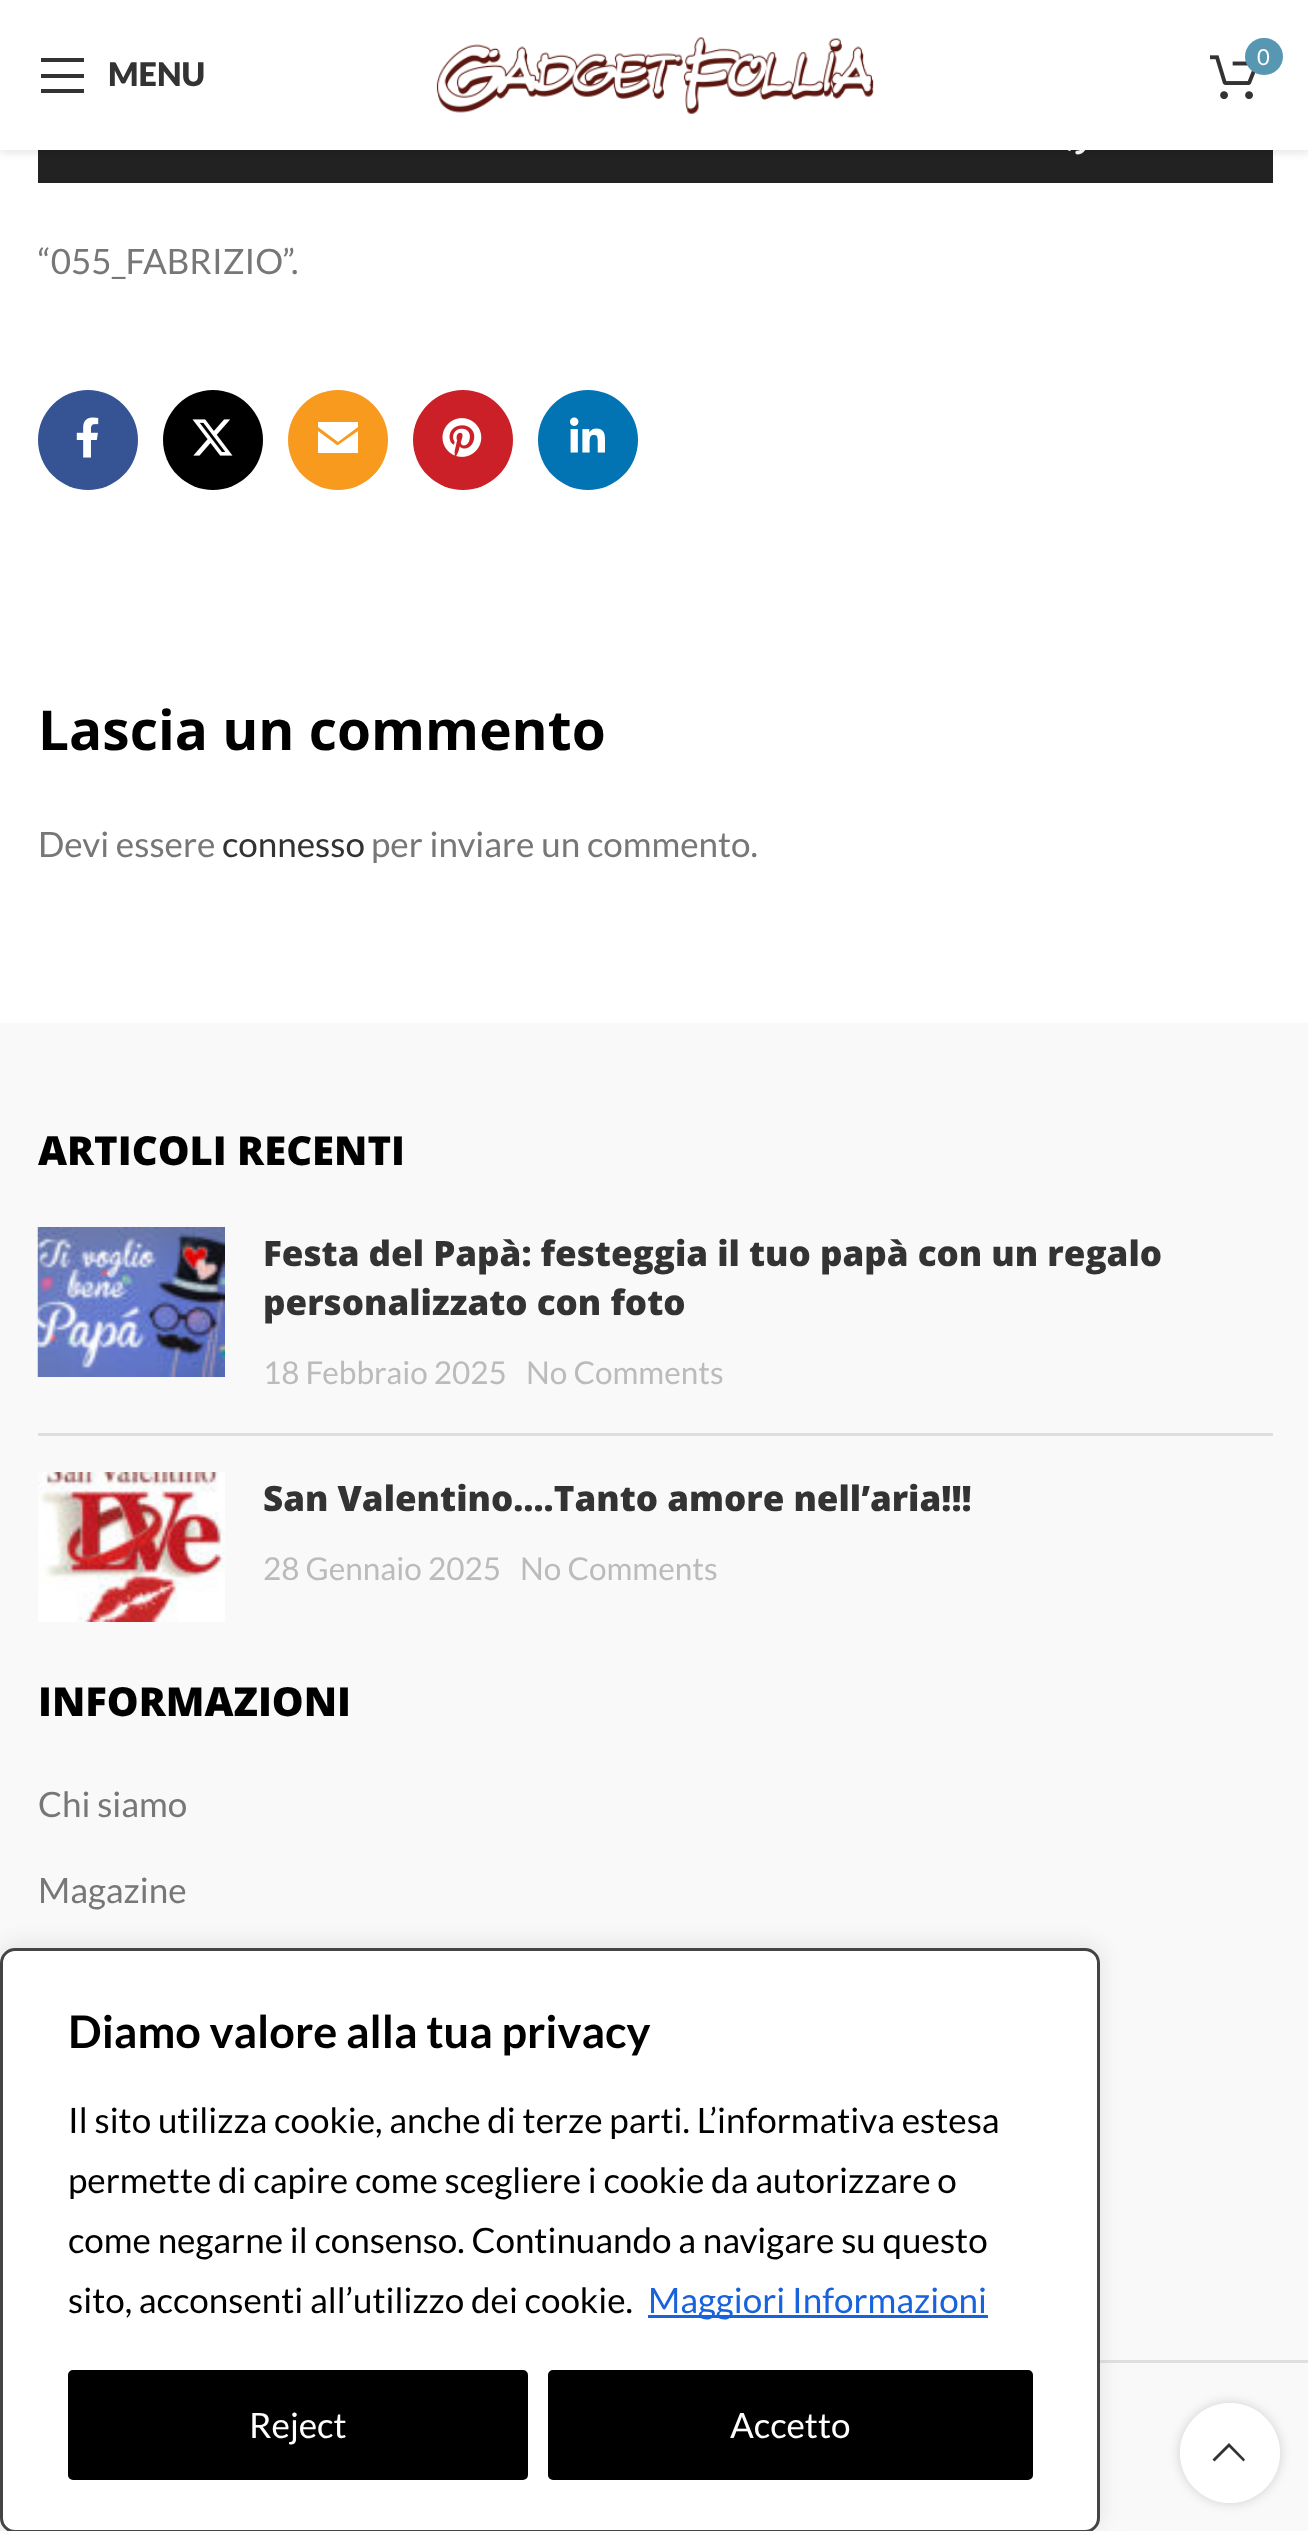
async function draw(canvas) {
	canvas.width = 1308;
	canvas.height = 2531;
	const c = canvas.getContext('2d');
	c.miterLimit = 4;
	c.fontKerning = 'normal';
	async function loadImage(src) {
		const img = new Image();
		img.src = src;
		await img.decode();
		return img;
	}

	c.fillStyle = '#fff';
	c.fillRect(0, 0, 1308, 2531);
	c.fillStyle = '#222';
	c.fillRect(38, 150, 1235, 33);
	c.drawImage(await loadImage('img3.png'), 1067, 150, 19, 5);
	c.fillStyle = '#0000001a';
	c.filter = 'blur(4px)';
	c.beginPath();
	c.rect(0, 3, 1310, 150);
	c.fill();
	c.filter = 'none';
	c.fillStyle = '#fff';
	c.fillRect(0, 0, 1308, 150);
	c.drawImage(await loadImage('img1.png'), 436, 37, 438, 77);
	c.drawImage(await loadImage('img2.png'), 1210, 55, 46, 45);
	c.fillStyle = '#5797b2';
	c.beginPath();
	c.roundRect(1245, 38, 38, 37, 18.5);
	c.fill();
	c.font = '22px Lato';
	c.fillStyle = '#fff';
	c.fillText('0', 1257, 65);
	c.fillStyle = '#333';
	c.beginPath();
	c.moveTo(41, 62);
	c.lineTo(84, 62);
	c.lineTo(84, 58);
	c.lineTo(41, 58);
	c.closePath();
	c.moveTo(41, 78);
	c.lineTo(84, 78);
	c.lineTo(84, 74);
	c.lineTo(41, 74);
	c.closePath();
	c.moveTo(41, 93);
	c.lineTo(84, 93);
	c.lineTo(84, 89);
	c.lineTo(41, 89);
	c.closePath();
	c.fill();
	c.font = '900 32.5px Lato';
	c.fillText('MENU', 108, 86);
	c.font = '35px Lato';
	c.fillStyle = '#777';
	c.fillText('“055_FABRIZIO”.', 38, 274);
	c.fillStyle = '#365493';
	c.beginPath();
	c.arc(88, 440, 50, 0, 2 * Math.PI);
	c.fill();
	c.drawImage(await loadImage('img4.png'), 76, 417, 23, 41);
	c.fillStyle = '#000';
	c.beginPath();
	c.arc(213, 440, 50, 0, 2 * Math.PI);
	c.fill();
	c.drawImage(await loadImage('img5.png'), 192, 419, 41, 37);
	c.fillStyle = '#f89a1e';
	c.beginPath();
	c.arc(338, 440, 50, 0, 2 * Math.PI);
	c.fill();
	c.fillStyle = '#fff';
	c.beginPath();
	c.moveTo(358, 422);
	c.lineTo(318, 422);
	c.lineTo(318, 427);
	c.lineTo(338, 442);
	c.lineTo(358, 427);
	c.closePath();
	c.moveTo(358, 431);
	c.lineTo(338, 445);
	c.lineTo(337, 445);
	c.lineTo(318, 431);
	c.lineTo(318, 453);
	c.lineTo(358, 453);
	c.closePath();
	c.fill();
	c.fillStyle = '#cb2027';
	c.beginPath();
	c.arc(463, 440, 50, 0, 2 * Math.PI);
	c.fill();
	c.drawImage(await loadImage('img6.png'), 442, 418, 40, 39);
	c.fillStyle = '#0274b3';
	c.beginPath();
	c.arc(588, 440, 50, 0, 2 * Math.PI);
	c.fill();
	c.drawImage(await loadImage('img7.png'), 570, 417, 35, 36);
	c.font = 'bold 55px Open Sans';
	c.fillStyle = '#000';
	c.fillText('Lascia un commento', 38, 750);
	c.font = '35px Lato';
	c.fillStyle = '#777';
	c.fillText('Devi essere', 38, 857);
	c.fillStyle = '#333';
	c.fillText('connesso', 222, 857);
	c.fillStyle = '#777';
	c.fillText('per inviare un commento.', 371, 857);
	c.fillStyle = '#f9f9f9';
	c.fillRect(0, 1023, 1308, 1508);
	c.font = '800 40px Open Sans';
	c.fillStyle = '#000';
	c.fillText('ARTICOLI RECENTI', 38, 1165);
	c.fillStyle = '#dfdfdf';
	c.fillRect(38, 1433, 1235, 3);
	c.drawImage(await loadImage('img8.png'), 37, 1227, 188, 150);
	c.font = '800 35px Open Sans';
	c.fillStyle = '#333';
	c.fillText('Festa del Papà: festeggia il tuo papà con un regalo', 263, 1266);
	c.fillText('personalizzato con foto', 263, 1315);
	c.font = '31.5px Lato';
	c.fillStyle = '#bbb';
	c.fillText('18 Febbraio 2025', 263, 1384);
	c.fillText('No Comments', 526, 1384);
	c.drawImage(await loadImage('img9.png'), 38, 1472, 187, 150);
	c.font = '800 35px Open Sans';
	c.fillStyle = '#333';
	c.fillText('San Valentino….Tanto amore nell’aria!!!', 263, 1511);
	c.font = '31.5px Lato';
	c.fillStyle = '#bbb';
	c.fillText('28 Gennaio 2025', 263, 1580);
	c.fillText('No Comments', 520, 1580);
	c.font = '800 40px Open Sans';
	c.fillStyle = '#000';
	c.fillText('INFORMAZIONI', 38, 1716);
	c.font = '35px Lato';
	c.fillStyle = '#777';
	c.fillText('Chi siamo', 38, 1817);
	c.fillText('Magazine', 38, 1903);
	c.fillStyle = '#dfdfdf';
	c.fillRect(1100, 2360, 208, 3);
	c.fillStyle = '#acabab4d';
	c.filter = 'blur(12.5px)';
	c.beginPath();
	c.roundRect(0, 1945, 1100, 585, 15);
	c.fill();
	c.filter = 'none';
	c.fillStyle = '#fff';
	c.beginPath();
	c.roundRect(1.5, 1949.5, 1097, 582, 13.5);
	c.fill();
	c.strokeStyle = '#444';
	c.lineWidth = 3;
	c.stroke();
	c.font = 'bold 45px Lato';
	c.fillStyle = '#000';
	c.fillText('Diamo valore alla tua privacy', 68, 2048);
	c.font = '35px Lato';
	for (const [text, x, y] of [
		['Il sito utilizza cookie, anche di terze parti. L’informativa estesa', 68, 2133],
		['permette di capire come scegliere i cookie da autorizzare o', 68, 2193],
		['come negarne il consenso. Continuando a navigare su questo', 68, 2253],
		['sito, acconsenti all’utilizzo dei cookie.', 68, 2313],
	]) {
		c.fillText(text, x, y);
	}
	c.fillStyle = '#1863dc';
	c.fillRect(648, 2315, 340, 3);
	c.fillText('Maggiori Informazioni', 648, 2313);
	c.fillStyle = '#000';
	c.beginPath();
	c.roundRect(70.5, 2372.5, 455, 105, 2.5);
	c.fill();
	c.strokeStyle = '#000';
	c.lineWidth = 5;
	c.stroke();
	c.fillStyle = '#fff';
	c.fillText('Reject', 249, 2438);
	c.fillStyle = '#000';
	c.beginPath();
	c.roundRect(550.5, 2372.5, 480, 105, 2.5);
	c.fill();
	c.stroke();
	c.fillStyle = '#fff';
	c.fillText('Accetto', 730, 2438);
	c.save();
	c.beginPath();
	c.moveTo(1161, 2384);
	c.lineTo(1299, 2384);
	c.lineTo(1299, 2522);
	c.lineTo(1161, 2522);
	c.closePath();
	c.moveTo(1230, 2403);
	c.bezierCurveTo(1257.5, 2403, 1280, 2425.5, 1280, 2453);
	c.bezierCurveTo(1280, 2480.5, 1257.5, 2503, 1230, 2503);
	c.bezierCurveTo(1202.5, 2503, 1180, 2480.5, 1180, 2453);
	c.bezierCurveTo(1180, 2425.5, 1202.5, 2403, 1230, 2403);
	c.closePath();
	c.clip('evenodd');
	c.fillStyle = '#0000002b';
	c.filter = 'blur(6px)';
	c.beginPath();
	c.roundRect(1180, 2403, 100, 100, 50);
	c.fill();
	c.filter = 'none';
	c.restore();
	c.fillStyle = '#ffffffe6';
	c.beginPath();
	c.arc(1230, 2453, 50, 0, 2 * Math.PI);
	c.fill();
	c.fillStyle = '#333';
	c.beginPath();
	c.moveTo(1243.5, 2461.5);
	c.lineTo(1245, 2459.5);
	c.lineTo(1229, 2443);
	c.lineTo(1212.5, 2459.5);
	c.lineTo(1214.5, 2461.5);
	c.lineTo(1229, 2447);
	c.closePath();
	c.fill();
}

draw(document.querySelector('canvas'));
